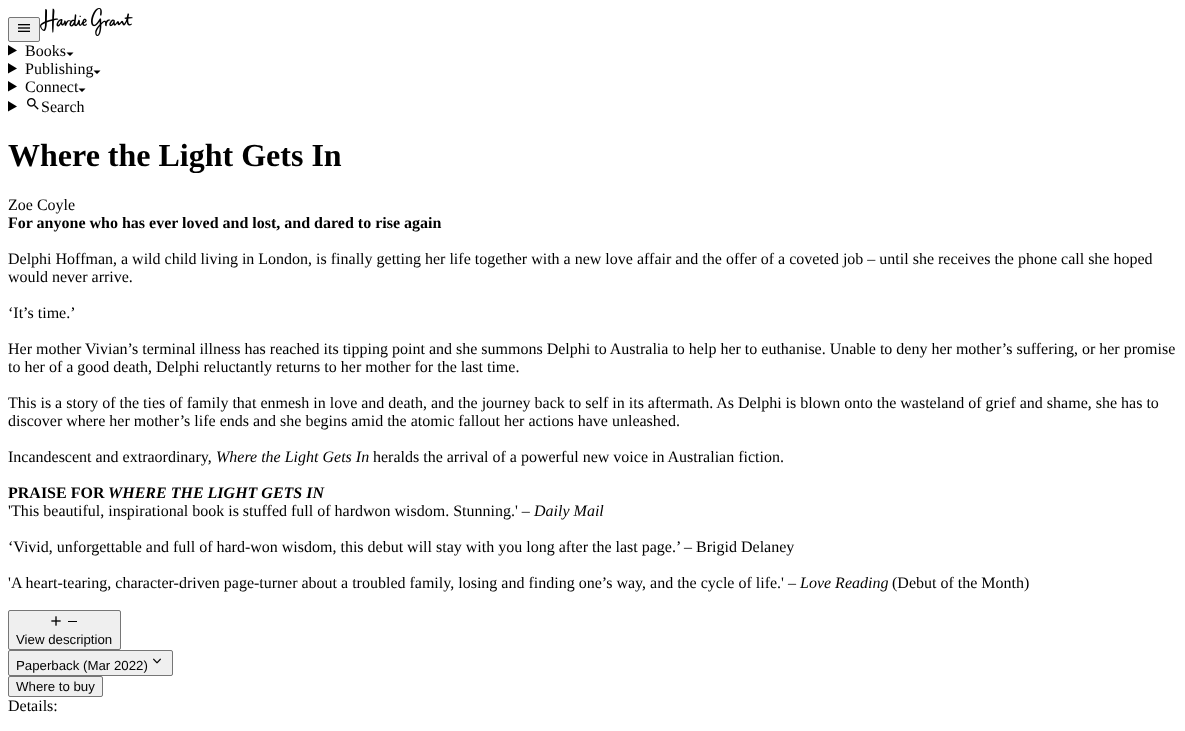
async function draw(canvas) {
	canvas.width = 1185;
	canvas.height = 731;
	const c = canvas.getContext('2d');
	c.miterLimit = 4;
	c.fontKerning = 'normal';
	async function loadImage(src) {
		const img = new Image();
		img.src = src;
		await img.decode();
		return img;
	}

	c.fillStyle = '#fff';
	c.fillRect(0, 0, 1185, 731);
	c.fillStyle = '#efefef';
	c.beginPath();
	c.roundRect(8.5, 17.5, 31, 24, 1.5);
	c.fill();
	c.strokeStyle = '#767676';
	c.stroke();
	c.drawImage(await loadImage('img1.png'), 18, 24, 12, 8);
	c.drawImage(await loadImage('img2.png'), 40, 8, 93, 28);
	c.fillStyle = '#000';
	c.beginPath();
	c.moveTo(8, 45);
	c.lineTo(17, 50.5);
	c.lineTo(8, 55.5);
	c.closePath();
	c.fill();
	c.font = '16px Liberation Serif';
	c.fillText('Books', 25, 56);
	c.beginPath();
	c.moveTo(66.5, 52.5);
	c.lineTo(70, 56);
	c.lineTo(73.5, 52.5);
	c.closePath();
	c.moveTo(93.5, 70.5);
	c.lineTo(97, 74);
	c.lineTo(100.5, 70.5);
	c.closePath();
	c.moveTo(78.5, 88.5);
	c.lineTo(82, 92);
	c.lineTo(85.5, 88.5);
	c.closePath();
	c.fill();
	c.beginPath();
	c.moveTo(8, 63);
	c.lineTo(17, 68.5);
	c.lineTo(8, 73.5);
	c.closePath();
	c.fill();
	c.fillText('Publishing', 25, 74);
	c.beginPath();
	c.moveTo(8, 81);
	c.lineTo(17, 86.5);
	c.lineTo(8, 91.5);
	c.closePath();
	c.fill();
	c.fillText('Connect', 25, 92);
	c.beginPath();
	c.moveTo(8, 101);
	c.lineTo(17, 106.5);
	c.lineTo(8, 111.5);
	c.closePath();
	c.fill();
	c.drawImage(await loadImage('img3.png'), 27, 98, 12, 12);
	c.fillText('Search', 41, 112);
	c.font = 'bold 32px Liberation Serif';
	c.fillText('Where the Light Gets In', 8, 166);
	c.font = '16px Liberation Serif';
	c.fillText('Zoe Coyle', 8, 210);
	c.font = 'bold 16px Liberation Serif';
	c.fillText('For anyone who has ever loved and lost, and dared to rise again', 8, 228);
	c.font = '16px Liberation Serif';
	for (const [text, x, y] of [
		['Delphi Hoffman, a wild child living in London, is finally getting her life together with a new love affair and the offer of a coveted job – until she receives the phone call she hoped', 8, 264],
		['would never arrive.', 8, 282],
		['‘It’s time.’', 8, 318],
		['Her mother Vivian’s terminal illness has reached its tipping point and she summons Delphi to Australia to help her to euthanise. Unable to deny her mother’s suffering, or her promise', 8, 354],
		['to her of a good death, Delphi reluctantly returns to her mother for the last time.', 8, 372],
		['This is a story of the ties of family that enmesh in love and death, and the journey back to self in its aftermath. As Delphi is blown onto the wasteland of grief and shame, she has to', 8, 408],
		['discover where her mother’s life ends and she begins amid the atomic fallout her actions have unleashed.', 8, 426],
		['Incandescent and extraordinary,', 8, 462],
	]) {
		c.fillText(text, x, y);
	}
	c.font = 'italic 16px Liberation Serif';
	c.fillText('Where the Light Gets In', 216, 462);
	c.font = '16px Liberation Serif';
	c.fillText('heralds the arrival of a powerful new voice in Australian fiction.', 373, 462);
	c.font = 'bold 16px Liberation Serif';
	c.fillText('PRAISE FOR', 8, 498);
	c.font = 'italic bold 16px Liberation Serif';
	c.fillText('WHERE THE LIGHT GETS IN', 108, 498);
	c.font = '16px Liberation Serif';
	c.fillText('\'This beautiful, inspirational book is stuffed full of hardwon wisdom. Stunning.\' –', 8, 516);
	c.font = 'italic 16px Liberation Serif';
	c.fillText('Daily Mail', 534, 516);
	c.font = '16px Liberation Serif';
	c.fillText('‘Vivid, unforgettable and full of hard-won wisdom, this debut will stay with you long after the last page.’ – Brigid Delaney', 8, 552);
	c.fillText('\'A heart-tearing, character-driven page-turner about a troubled family, losing and finding one’s way, and the cycle of life.\' –', 8, 588);
	c.font = 'italic 16px Liberation Serif';
	c.fillText('Love Reading', 800, 588);
	c.font = '16px Liberation Serif';
	c.fillText('(Debut of the Month)', 892, 588);
	c.fillStyle = '#efefef';
	c.beginPath();
	c.roundRect(8.5, 610.5, 112, 39, 1.5);
	c.fill();
	c.stroke();
	c.drawImage(await loadImage('img4.png'), 51, 616, 10, 10);
	c.fillStyle = '#000';
	c.fillRect(68, 621, 9, 1);
	c.font = '13.25px Liberation Sans';
	c.fillText('View description', 16, 644);
	c.fillStyle = '#efefef';
	c.beginPath();
	c.roundRect(8.5, 650.5, 164, 25, 1.5);
	c.fill();
	c.stroke();
	c.fillStyle = '#000';
	c.fillText('Paperback (Mar 2022)', 16, 670);
	c.drawImage(await loadImage('img5.png'), 153, 658, 8, 6);
	c.fillStyle = '#efefef';
	c.beginPath();
	c.roundRect(8.5, 676.5, 94, 20, 1.5);
	c.fill();
	c.stroke();
	c.fillStyle = '#000';
	c.fillText('Where to buy', 16, 691);
	c.font = '16px Liberation Serif';
	c.fillText('Details:', 8, 711);
}

draw(document.querySelector('canvas'));
